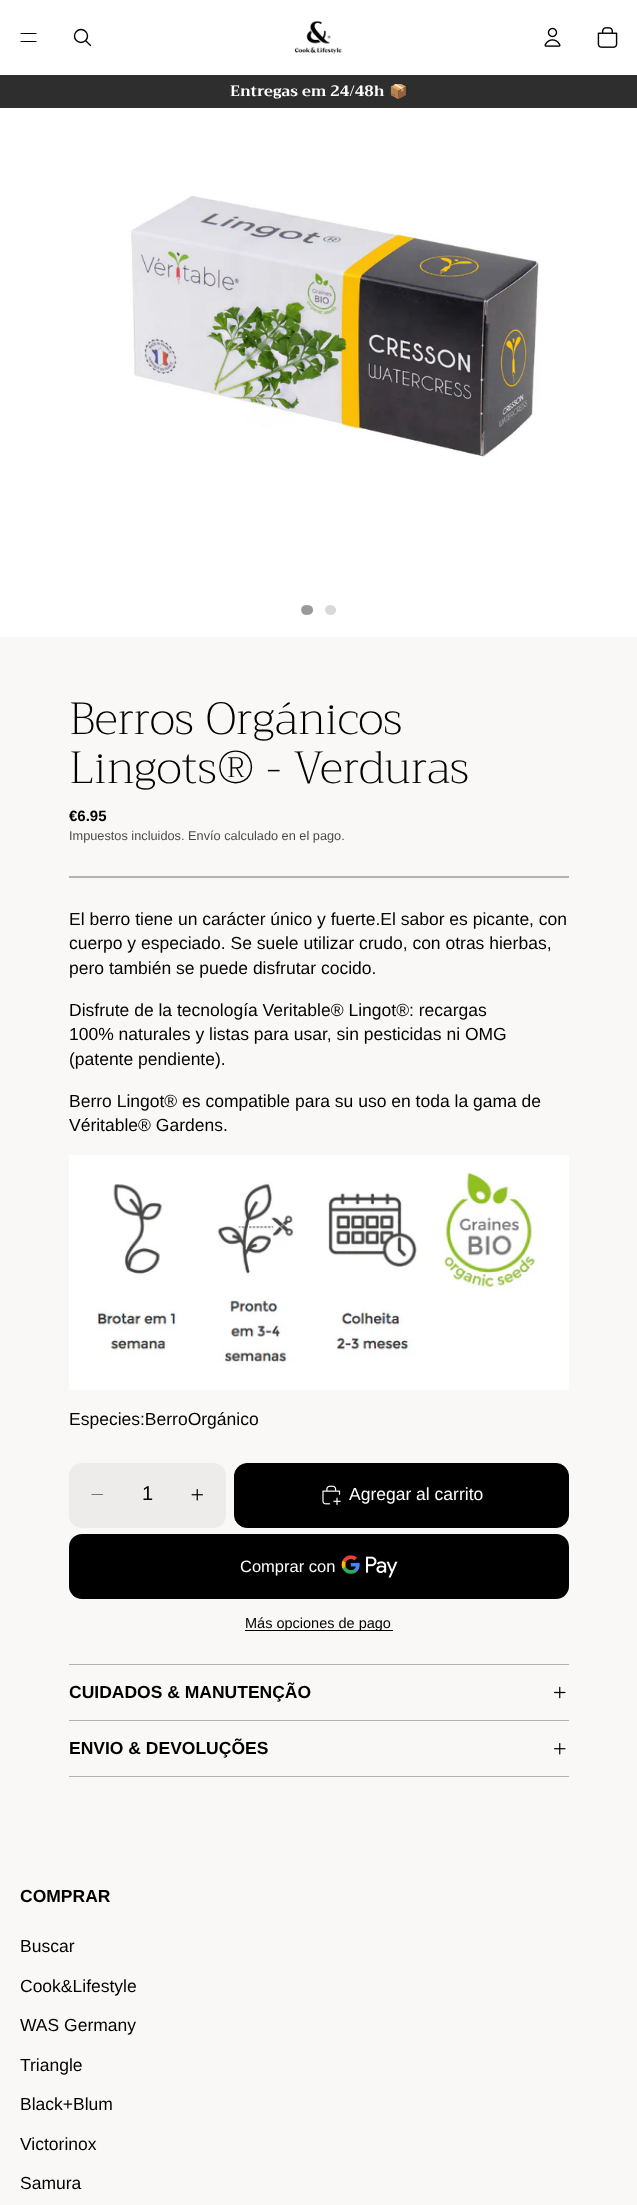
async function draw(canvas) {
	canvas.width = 637;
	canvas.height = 2205;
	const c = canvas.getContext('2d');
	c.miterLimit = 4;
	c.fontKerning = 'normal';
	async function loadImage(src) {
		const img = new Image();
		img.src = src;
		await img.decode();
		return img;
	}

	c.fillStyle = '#f9f8f6';
	c.fillRect(0, 0, 637, 2205);
	c.drawImage(await loadImage('img4.png'), 0, 0, 637, 637);
	c.beginPath();
	c.moveTo(21, 33.5);
	c.lineTo(36, 33.5);
	c.moveTo(21, 41.5);
	c.lineTo(36, 41.5);
	c.strokeStyle = '#000';
	c.lineWidth = 1.2;
	c.lineCap = 'round';
	c.stroke();
	c.beginPath();
	c.arc(81, 36, 6.5, 0, 2 * Math.PI);
	c.lineWidth = 1.4;
	c.stroke();
	c.beginPath();
	c.moveTo(86, 41);
	c.lineTo(90.5, 45.5);
	c.lineJoin = 'round';
	c.stroke();
	c.drawImage(await loadImage('img1.png'), 294, 21, 48, 33);
	c.drawImage(await loadImage('img2.png'), 544, 27, 17, 20);
	c.drawImage(await loadImage('img3.png'), 597, 27, 21, 21);
	c.fillStyle = '#2e2e2e';
	c.fillRect(0, 75, 637, 33);
	c.font = 'bold 15px Trirong';
	c.fillStyle = '#fff';
	c.fillText('Entregas em 24/48h', 230, 96);
	c.save();
	c.beginPath();
	c.rect(55, 84, 528, 15);
	c.clip();
	c.font = 'bold 15px Noto Color Emoji';
	c.fillText('📦', 389, 96);
	c.restore();
	c.fillStyle = '#999';
	c.beginPath();
	c.moveTo(306, 605);
	c.lineTo(310, 605.5);
	c.bezierCurveTo(314, 607, 314, 613, 310, 614.5);
	c.lineTo(306, 615);
	c.bezierCurveTo(299.5, 614.5, 299.5, 605, 306, 605);
	c.closePath();
	c.fill();
	c.fillStyle = '#d9d9d9';
	c.beginPath();
	c.moveTo(330, 605);
	c.bezierCurveTo(338, 605, 338, 614.5, 331, 615);
	c.bezierCurveTo(323.5, 615.5, 323, 605, 330, 605);
	c.closePath();
	c.fill();
	c.font = '300 45px Trirong';
	c.fillStyle = '#000';
	c.fillText('Berros Orgánicos', 69, 734);
	c.fillText('Lingots® - Verduras', 69, 783);
	c.font = 'bold 15px Liberation Sans';
	c.fillText('€6.95', 69, 821);
	c.font = '12.75px Liberation Sans';
	c.fillStyle = '#4b4a4a';
	c.fillText('Impuestos incluidos. Envío calculado en el pago.', 69, 840);
	c.fillStyle = '#b3b3b1';
	c.beginPath();
	c.moveTo(569, 876);
	c.lineTo(569, 877.5);
	c.lineTo(567.5, 876);
	c.closePath();
	c.fill();
	c.fillStyle = '#00000047';
	c.beginPath();
	c.moveTo(569, 878);
	c.lineTo(69, 878);
	c.lineTo(69, 876);
	c.lineTo(568, 876);
	c.closePath();
	c.fill();
	c.font = '17.5px Liberation Sans';
	c.fillStyle = '#000';
	for (const [text, x, y] of [
		['El berro tiene un carácter único y fuerte.El sabor es picante, con', 69, 925],
		['cuerpo y especiado. Se suele utilizar crudo, con otras hierbas,', 69, 949],
		['pero también se puede disfrutar cocido.', 69, 974],
		['Disfrute de la tecnología Veritable® Lingot®: recargas', 69, 1016],
		['100% naturales y listas para usar, sin pesticidas ni OMG', 69, 1040],
		['(patente pendiente).', 69, 1065],
		['Berro Lingot® es compatible para su uso en toda la gama de', 69, 1107],
		['Véritable® Gardens.', 69, 1131],
	]) {
		c.fillText(text, x, y);
	}
	c.drawImage(await loadImage('img5.png'), 69, 1155, 500, 235);
	c.fillText('Especies:BerroOrgánico', 69, 1425);
	c.fillStyle = '#edecea';
	c.beginPath();
	c.roundRect(69, 1463, 157, 65, 13);
	c.fill();
	c.beginPath();
	c.moveTo(92, 1494.5);
	c.lineTo(102.5, 1494.5);
	c.strokeStyle = '#777675';
	c.lineWidth = 1.2;
	c.lineJoin = 'miter';
	c.stroke();
	c.font = '20px Liberation Sans';
	c.fillStyle = '#000';
	c.fillText('1', 142, 1500);
	c.drawImage(await loadImage('img6.png'), 191, 1489, 12, 12);
	c.beginPath();
	c.roundRect(234.5, 1463.5, 334, 64, 12.5);
	c.fill();
	c.strokeStyle = '#000';
	c.lineWidth = 1;
	c.stroke();
	c.drawImage(await loadImage('img7.png'), 322, 1485, 19, 20);
	c.font = '17.5px Liberation Sans';
	c.fillStyle = '#fff';
	c.fillText('Agregar al carrito', 349, 1500);
	c.fillStyle = '#000';
	c.beginPath();
	c.roundRect(69, 1534, 500, 65, 13);
	c.fill();
	c.font = '16.5px Liberation Sans';
	c.fillStyle = '#fff';
	c.fillText('Comprar con', 240, 1572);
	c.drawImage(await loadImage('img8.png'), 341, 1555, 57, 23);
	c.fillStyle = '#000';
	c.fillRect(245, 1630, 148, 1);
	c.font = '14.5px Liberation Sans';
	c.fillText('Más opciones de pago', 245, 1628);
	c.fillStyle = '#b3b3b1';
	c.fillRect(69, 1664, 500, 1);
	c.font = 'bold 17.5px Liberation Sans';
	c.fillStyle = '#000';
	c.fillText('CUIDADOS & MANUTENÇÃO', 69, 1698);
	c.drawImage(await loadImage('img9.png'), 554, 1686, 12, 13);
	c.fillStyle = '#b3b3b1';
	c.fillRect(69, 1720, 500, 1);
	c.fillRect(69, 1776, 500, 1);
	c.fillStyle = '#000';
	c.fillText('ENVIO & DEVOLUÇÕES', 69, 1754);
	c.drawImage(await loadImage('img10.png'), 554, 1743, 12, 12);
	c.fillText('COMPRAR', 20, 1902);
	c.font = '17.5px Liberation Sans';
	for (const [text, x, y] of [
		['Buscar', 20, 1952],
		['Cook&Lifestyle', 20, 1992],
		['WAS Germany', 20, 2031],
		['Triangle', 20, 2071],
		['Black+Blum', 20, 2110],
		['Victorinox', 20, 2150],
		['Samura', 20, 2189],
	]) {
		c.fillText(text, x, y);
	}
}

draw(document.querySelector('canvas'));
